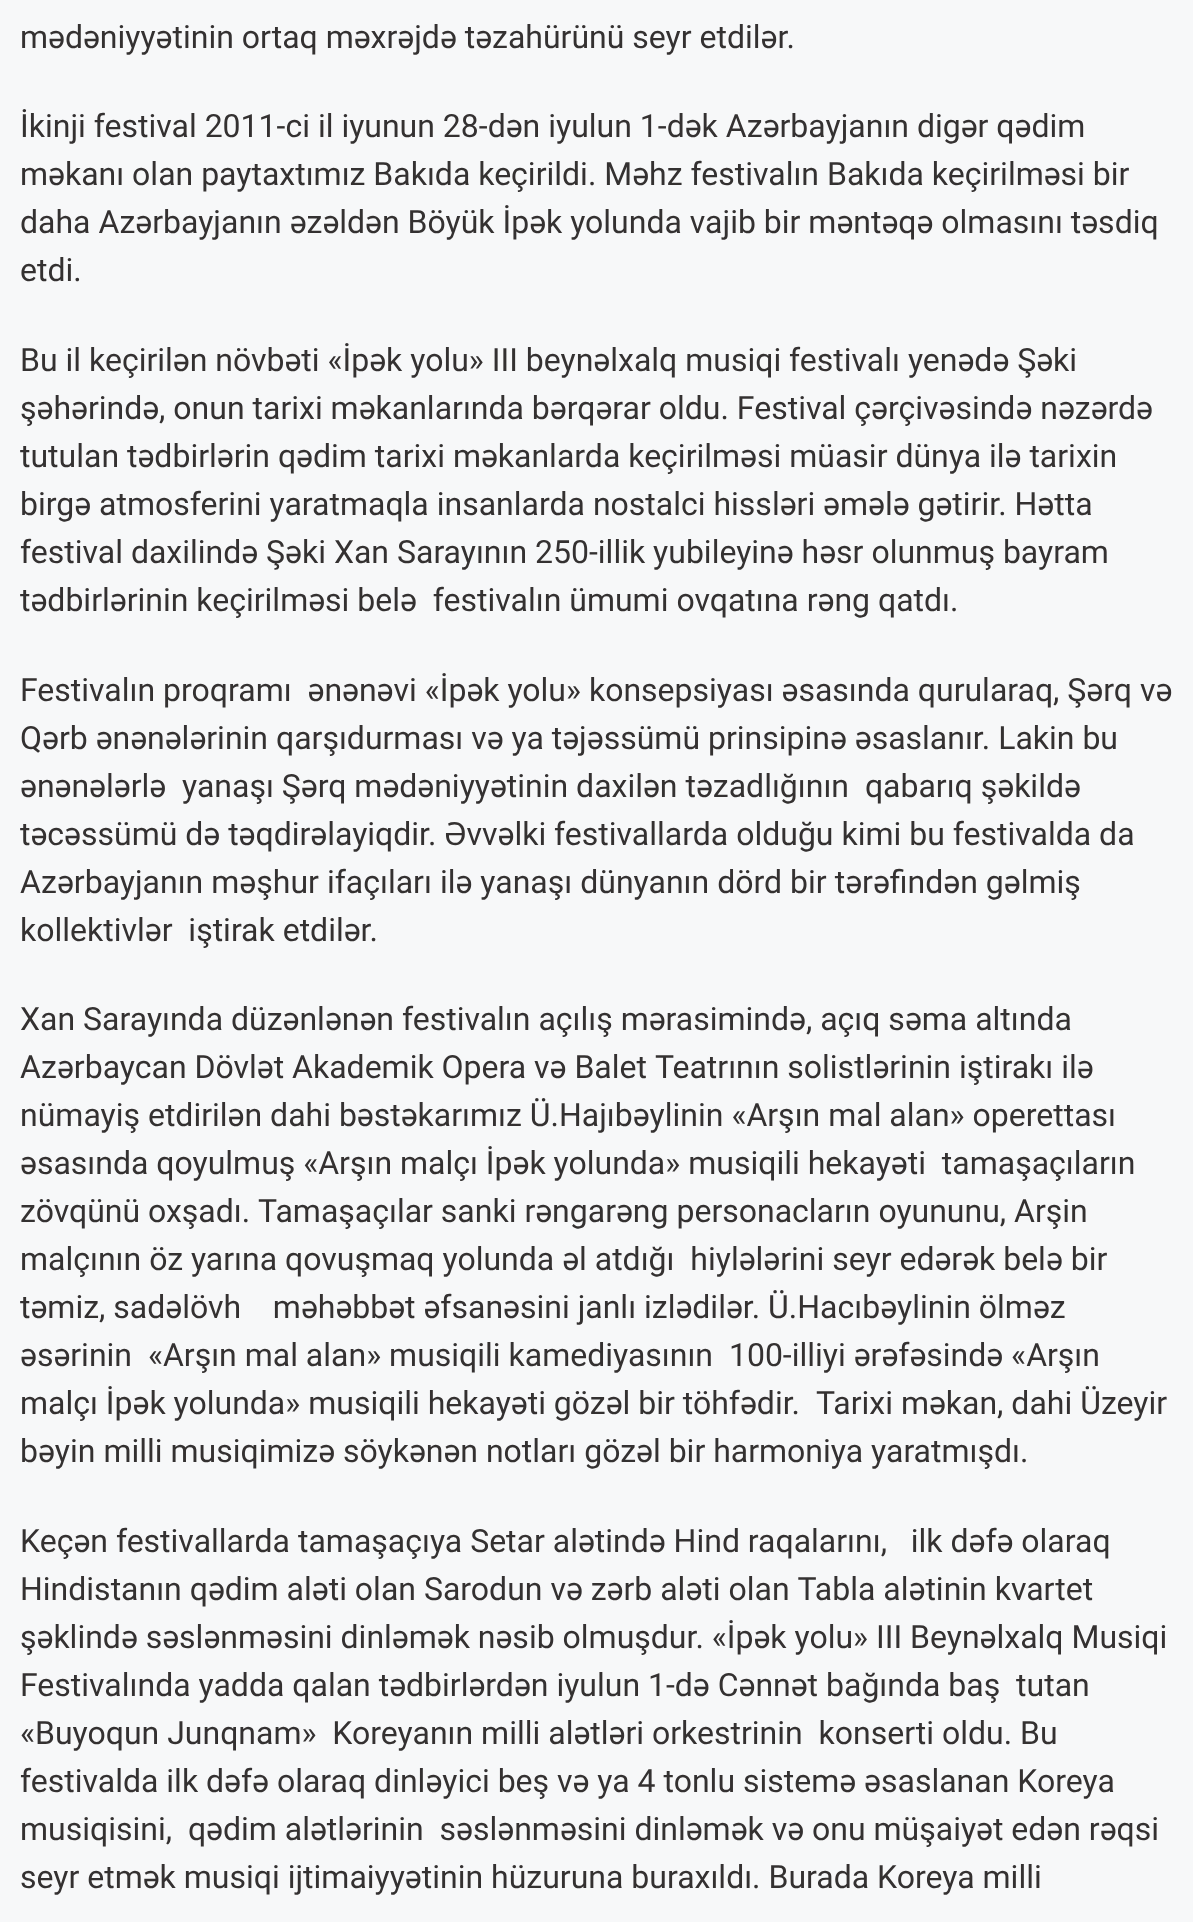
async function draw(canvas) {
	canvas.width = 1193;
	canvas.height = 1922;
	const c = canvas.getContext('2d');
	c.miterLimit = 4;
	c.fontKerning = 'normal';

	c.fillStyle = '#f7f8f9';
	c.fillRect(0, 0, 1193, 1922);
	c.font = '32px Roboto';
	c.fillStyle = '#343131';
	for (const [text, x, y] of [
		['mədəniyyətinin ortaq məxrəjdə təzahürünü seyr etdilər.', 20, 48],
		['İkinji festival 2011-ci il iyunun 28-dən iyulun 1-dək Azərbayjanın digər qədim', 20, 137],
		['məkanı olan paytaxtımız Bakıda keçirildi. Məhz festivalın Bakıda keçirilməsi bir', 20, 185],
		['daha Azərbayjanın əzəldən Böyük İpək yolunda vajib bir məntəqə olmasını təsdiq', 20, 233],
		['etdi.', 20, 281],
		['Bu il keçirilən növbəti «İpək yolu» III beynəlxalq musiqi festivalı yenədə Şəki', 20, 371],
		['şəhərində, onun tarixi məkanlarında bərqərar oldu. Festival çərçivəsində nəzərdə', 20, 419],
		['tutulan tədbirlərin qədim tarixi məkanlarda keçirilməsi müasir dünya ilə tarixin', 20, 467],
		['birgə atmosferini yaratmaqla insanlarda nostalci hissləri əmələ gətirir. Hətta', 20, 515],
		['festival daxilində Şəki Xan Sarayının 250-illik yubileyinə həsr olunmuş bayram', 20, 563],
		['tədbirlərinin keçirilməsi belə  festivalın ümumi ovqatına rəng qatdı.', 20, 611],
		['Festivalın proqramı  ənənəvi «İpək yolu» konsepsiyası əsasında qurularaq, Şərq və', 20, 701],
		['Qərb ənənələrinin qarşıdurması və ya təjəssümü prinsipinə əsaslanır. Lakin bu', 20, 749],
		['ənənələrlə  yanaşı Şərq mədəniyyətinin daxilən təzadlığının  qabarıq şəkildə', 20, 797],
		['təcəssümü də təqdirəlayiqdir. Əvvəlki festivallarda olduğu kimi bu festivalda da', 20, 845],
	]) {
		c.fillText(text, x, y);
	}
	c.wordSpacing = '0.1px';
	c.fillText('Azərbayjanın məşhur ifaçıları ilə yanaşı dünyanın dörd bir tərəfindən gəlmiş', 20, 893);
	c.wordSpacing = '0px';
	for (const [text, x, y] of [
		['kollektivlər  iştirak etdilər.', 20, 941],
		['Xan Sarayında düzənlənən festivalın açılış mərasimində, açıq səma altında', 20, 1030],
		['Azərbaycan Dövlət Akademik Opera və Balet Teatrının solistlərinin iştirakı ilə', 20, 1078],
		['nümayiş etdirilən dahi bəstəkarımız Ü.Hajıbəylinin «Arşın mal alan» operettası', 20, 1126],
		['əsasında qoyulmuş «Arşın malçı İpək yolunda» musiqili hekayəti  tamaşaçıların', 20, 1174],
		['zövqünü oxşadı. Tamaşaçılar sanki rəngarəng personacların oyununu, Arşin', 20, 1222],
		['malçının öz yarına qovuşmaq yolunda əl atdığı  hiylələrini seyr edərək belə bir', 20, 1270],
		['təmiz, sadəlövh    məhəbbət əfsanəsini janlı izlədilər. Ü.Hacıbəylinin ölməz', 20, 1318],
		['əsərinin  «Arşın mal alan» musiqili kamediyasının  100-illiyi ərəfəsində «Arşın', 20, 1366],
		['malçı İpək yolunda» musiqili hekayəti gözəl bir töhfədir.  Tarixi məkan, dahi Üzeyir', 20, 1414],
		['bəyin milli musiqimizə söykənən notları gözəl bir harmoniya yaratmışdı.', 20, 1462],
		['Keçən festivallarda tamaşaçıya Setar alətində Hind raqalarını,   ilk dəfə olaraq', 20, 1552],
		['Hindistanın qədim aləti olan Sarodun və zərb aləti olan Tabla alətinin kvartet', 20, 1600],
		['şəklində səslənməsini dinləmək nəsib olmuşdur. «İpək yolu» III Beynəlxalq Musiqi', 20, 1648],
		['Festivalında yadda qalan tədbirlərdən iyulun 1-də Cənnət bağında baş  tutan', 20, 1696],
		['«Buyoqun Junqnam»  Koreyanın milli alətləri orkestrinin  konserti oldu. Bu', 20, 1744],
		['festivalda ilk dəfə olaraq dinləyici beş və ya 4 tonlu sistemə əsaslanan Koreya', 20, 1792],
		['musiqisini,  qədim alətlərinin  səslənməsini dinləmək və onu müşaiyət edən rəqsi', 20, 1840],
		['seyr etmək musiqi ijtimaiyyətinin hüzuruna buraxıldı. Burada Koreya milli', 20, 1888],
	]) {
		c.fillText(text, x, y);
	}
}

draw(document.querySelector('canvas'));
